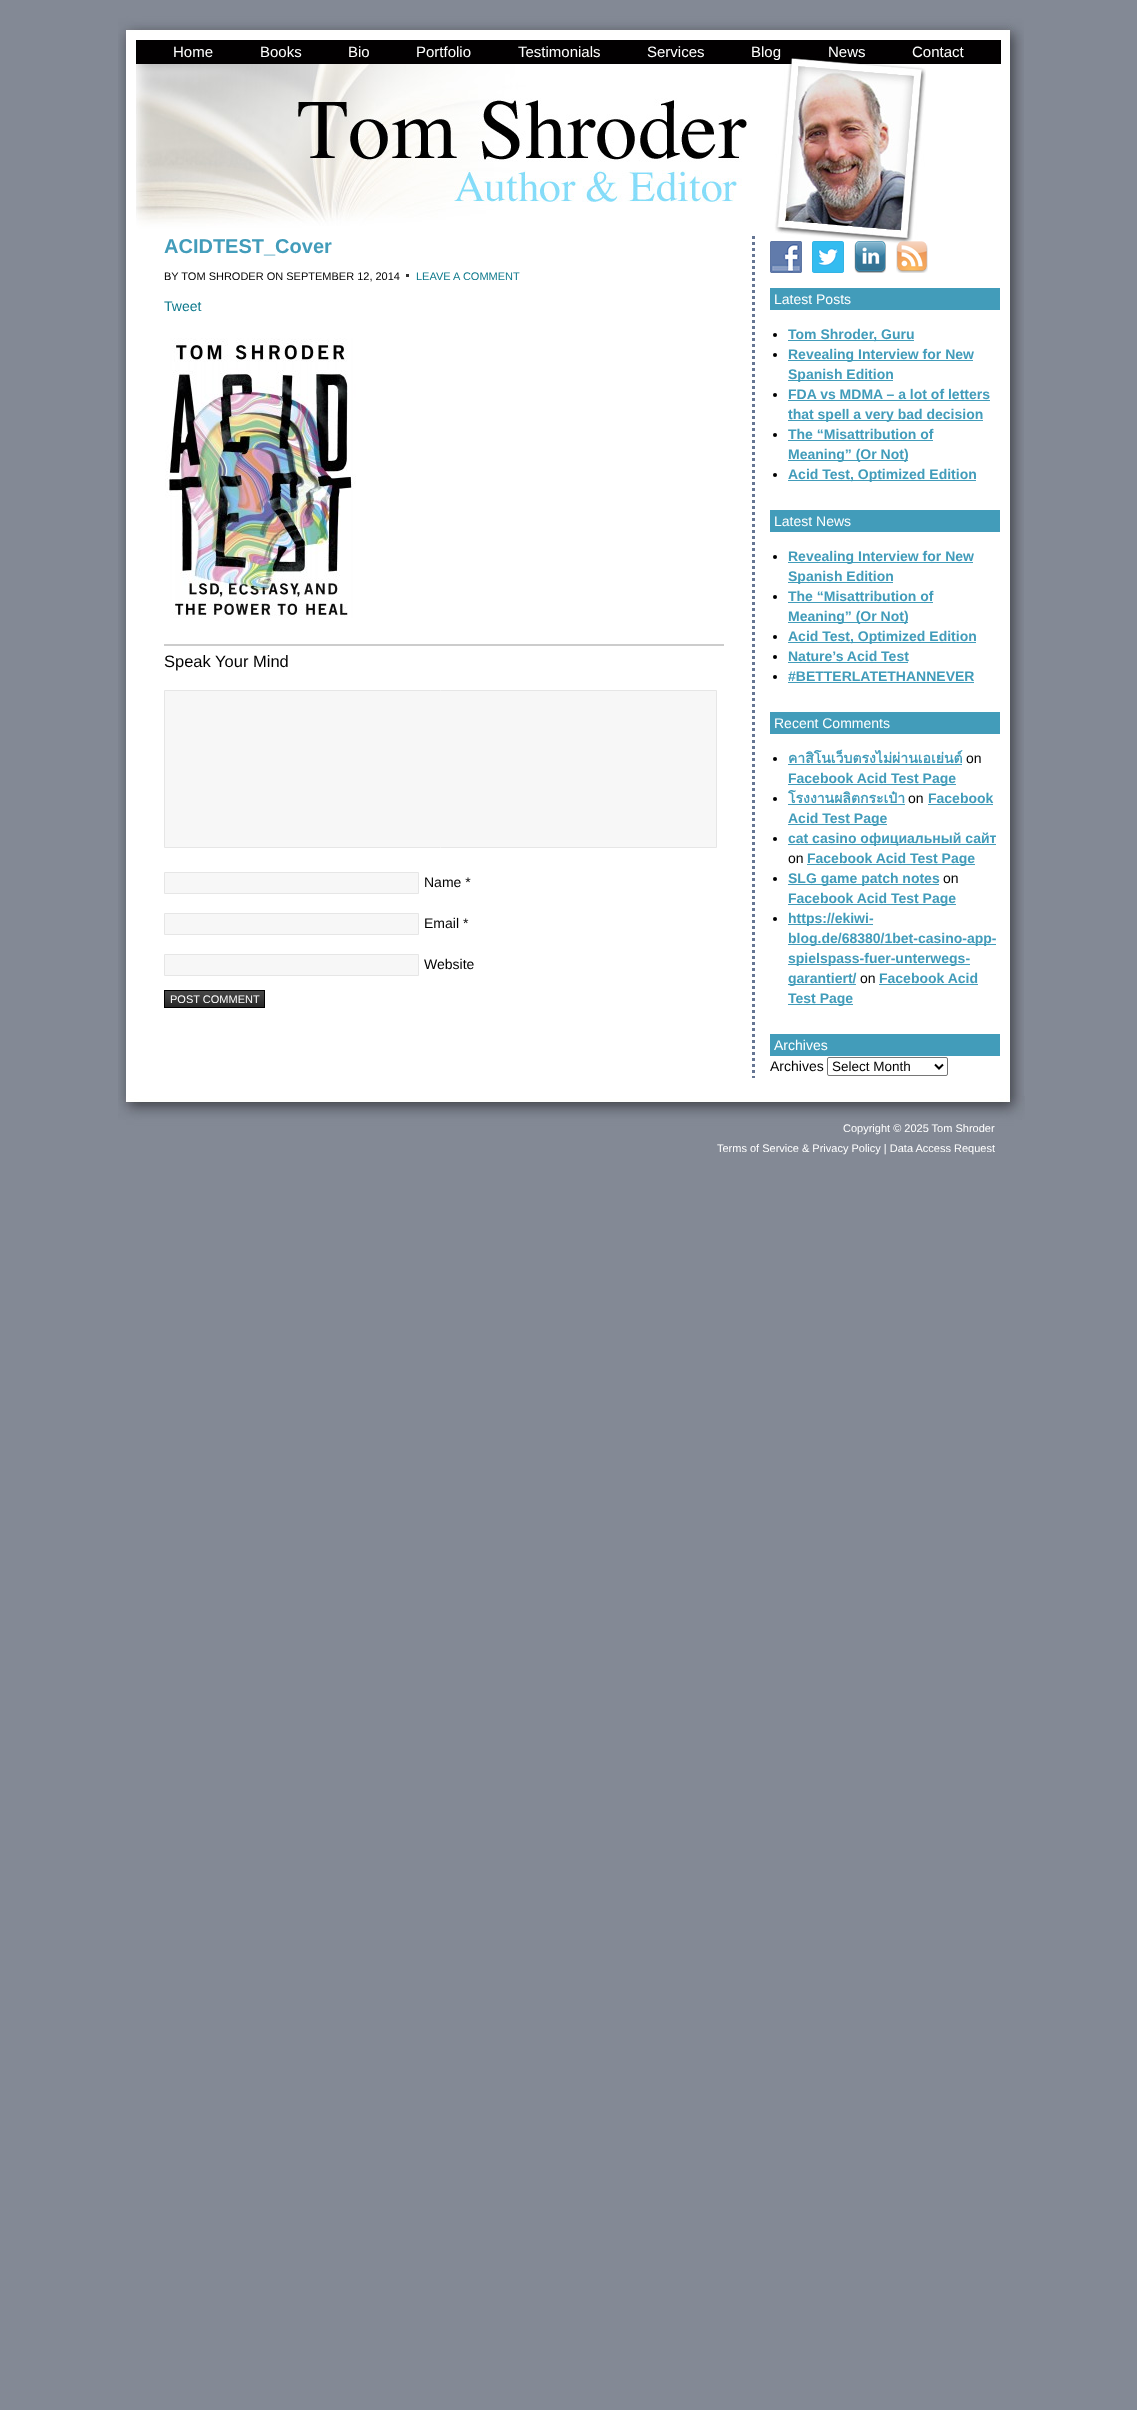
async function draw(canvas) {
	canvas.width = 1137;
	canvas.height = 2410;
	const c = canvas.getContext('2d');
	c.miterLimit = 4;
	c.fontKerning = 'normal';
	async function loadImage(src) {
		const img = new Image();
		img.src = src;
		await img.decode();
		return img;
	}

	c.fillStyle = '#838995';
	c.fillRect(0, 0, 1137, 2410);
	c.drawImage(await loadImage('img1.png'), 118, 66, 906, 1030);
	c.drawImage(await loadImage('img2.png'), 118, 0, 906, 66);
	c.font = '15px Liberation Sans';
	c.fillStyle = '#fff';
	for (const [text, x, y] of [
		['Home', 173, 57],
		['Books', 260, 57],
		['Bio', 348, 57],
		['Portfolio', 416, 57],
		['Testimonials', 518, 57],
		['Services', 647, 57],
		['Blog', 751, 57],
		['News', 828, 57],
		['Contact', 912, 57],
	]) {
		c.fillText(text, x, y);
	}
	c.drawImage(await loadImage('img3.png'), 136, 66, 790, 178);
	c.font = 'bold 20px Liberation Sans';
	c.fillStyle = '#429cba';
	c.fillText('ACIDTEST_Cover', 164, 253);
	c.font = '11px Liberation Sans';
	c.fillStyle = '#000';
	c.fillText('BY TOM SHRODER ON SEPTEMBER 12, 2014', 164, 280);
	c.fillStyle = '#0c788b';
	c.fillText('LEAVE A COMMENT', 416, 280);
	c.fillStyle = '#333';
	c.fillRect(406, 274, 3, 3);
	c.font = '14px Liberation Sans';
	c.fillStyle = '#0c788b';
	c.fillText('Tweet', 164, 311);
	c.drawImage(await loadImage('img4.png'), 165, 338, 191, 280);
	c.fillStyle = '#ccc';
	c.fillRect(164, 644, 560, 2);
	c.font = '16.5px Liberation Sans';
	c.fillStyle = '#000';
	c.fillText('Speak Your Mind', 164, 667);
	c.fillStyle = '#f7f7f7';
	c.beginPath();
	c.rect(164.5, 690.5, 552, 157);
	c.fill();
	c.strokeStyle = '#e6e6e6';
	c.stroke();
	c.beginPath();
	c.rect(164.5, 872.5, 254, 21);
	c.fill();
	c.stroke();
	c.font = '14px Liberation Sans';
	c.fillStyle = '#000';
	c.fillText('Name *', 424, 887);
	c.fillStyle = '#f7f7f7';
	c.beginPath();
	c.rect(164.5, 913.5, 254, 21);
	c.fill();
	c.stroke();
	c.fillStyle = '#000';
	c.fillText('Email *', 424, 928);
	c.fillStyle = '#f7f7f7';
	c.beginPath();
	c.rect(164.5, 954.5, 254, 21);
	c.fill();
	c.stroke();
	c.fillStyle = '#000';
	c.fillText('Website', 424, 969);
	c.drawImage(await loadImage('img5.png'), 165, 991, 99, 16);
	c.strokeStyle = '#000';
	c.strokeRect(164.5, 990.5, 100, 17);
	c.font = '11px Liberation Sans';
	c.fillStyle = '#fff';
	c.fillText('POST COMMENT', 170, 1003);
	c.beginPath();
	c.moveTo(753.5, 236);
	c.lineTo(753.5, 1078);
	c.strokeStyle = '#657593';
	c.lineWidth = 3;
	c.setLineDash([3, 3]);
	c.stroke();
	c.drawImage(await loadImage('img6.png'), 770, 241, 32, 32);
	c.drawImage(await loadImage('img7.png'), 812, 241, 32, 32);
	c.drawImage(await loadImage('img8.png'), 854, 241, 32, 32);
	c.drawImage(await loadImage('img9.png'), 896, 241, 32, 32);
	c.fillStyle = '#429cba';
	c.fillRect(770, 288, 230, 22);
	c.font = '14px Liberation Sans';
	c.fillStyle = '#fff';
	c.fillText('Latest Posts', 774, 304);
	c.fillStyle = '#000';
	c.beginPath();
	c.arc(775, 335, 2, 0, 2 * Math.PI);
	c.fill();
	c.fillStyle = '#429cba';
	c.fillRect(788, 340, 126, 1);
	c.font = 'bold 14px Liberation Sans';
	c.fillText('Tom Shroder, Guru', 788, 339);
	c.fillStyle = '#000';
	c.beginPath();
	c.arc(775, 355, 2, 0, 2 * Math.PI);
	c.fill();
	c.fillStyle = '#429cba';
	c.fillRect(788, 360, 185, 1);
	c.fillText('Revealing Interview for New', 788, 359);
	c.fillRect(788, 380, 105, 1);
	c.fillText('Spanish Edition', 788, 379);
	c.fillStyle = '#000';
	c.beginPath();
	c.arc(775, 395, 2, 0, 2 * Math.PI);
	c.fill();
	c.fillStyle = '#429cba';
	c.fillText('FDA vs MDMA – a lot of letters', 788, 399);
	c.fillRect(788, 400, 202, 1);
	c.fillRect(788, 420, 195, 1);
	c.fillText('that spell a very bad decision', 788, 419);
	c.fillStyle = '#000';
	c.beginPath();
	c.arc(775, 435, 2, 0, 2 * Math.PI);
	c.fill();
	c.fillStyle = '#429cba';
	c.fillText('The “Misattribution of', 788, 439);
	c.fillRect(788, 440, 145, 1);
	c.fillRect(788, 460, 120, 1);
	c.fillText('Meaning” (Or Not)', 788, 459);
	c.fillStyle = '#000';
	c.beginPath();
	c.arc(775, 475, 2, 0, 2 * Math.PI);
	c.fill();
	c.fillStyle = '#429cba';
	c.fillRect(788, 480, 188, 1);
	c.fillText('Acid Test, Optimized Edition', 788, 479);
	c.fillRect(770, 510, 230, 22);
	c.font = '14px Liberation Sans';
	c.fillStyle = '#fff';
	c.fillText('Latest News', 774, 526);
	c.fillStyle = '#000';
	c.beginPath();
	c.arc(775, 557, 2, 0, 2 * Math.PI);
	c.fill();
	c.fillStyle = '#429cba';
	c.fillRect(788, 562, 185, 1);
	c.font = 'bold 14px Liberation Sans';
	c.fillText('Revealing Interview for New', 788, 561);
	c.fillRect(788, 582, 105, 1);
	c.fillText('Spanish Edition', 788, 581);
	c.fillStyle = '#000';
	c.beginPath();
	c.arc(775, 597, 2, 0, 2 * Math.PI);
	c.fill();
	c.fillStyle = '#429cba';
	c.fillText('The “Misattribution of', 788, 601);
	c.fillRect(788, 602, 145, 1);
	c.fillRect(788, 622, 120, 1);
	c.fillText('Meaning” (Or Not)', 788, 621);
	c.fillStyle = '#000';
	c.beginPath();
	c.arc(775, 637, 2, 0, 2 * Math.PI);
	c.fill();
	c.fillStyle = '#429cba';
	c.fillRect(788, 642, 188, 1);
	c.fillText('Acid Test, Optimized Edition', 788, 641);
	c.fillStyle = '#000';
	c.beginPath();
	c.arc(775, 657, 2, 0, 2 * Math.PI);
	c.fill();
	c.fillStyle = '#429cba';
	c.fillText('Nature’s Acid Test', 788, 661);
	c.fillRect(788, 662, 120, 1);
	c.fillStyle = '#000';
	c.beginPath();
	c.arc(775, 677, 2, 0, 2 * Math.PI);
	c.fill();
	c.fillStyle = '#429cba';
	c.fillText('#BETTERLATETHANNEVER', 788, 681);
	c.fillRect(788, 682, 186, 1);
	c.fillRect(770, 712, 230, 22);
	c.font = '14px Liberation Sans';
	c.fillStyle = '#fff';
	c.fillText('Recent Comments', 774, 728);
	c.fillStyle = '#000';
	c.beginPath();
	c.arc(775, 759, 2, 0, 2 * Math.PI);
	c.fill();
	c.font = 'bold 14px Loma';
	c.fillStyle = '#429cba';
	c.fillText('คาสิโนเว็บตรงไม่ผ่านเอเย่นต์', 788, 763);
	c.fillRect(788, 764, 174, 1);
	c.font = '14px Liberation Sans';
	c.fillStyle = '#000';
	c.fillText('on', 966, 763);
	c.fillStyle = '#429cba';
	c.fillRect(788, 784, 168, 1);
	c.font = 'bold 14px Liberation Sans';
	c.fillText('Facebook Acid Test Page', 788, 783);
	c.fillStyle = '#000';
	c.beginPath();
	c.arc(775, 799, 2, 0, 2 * Math.PI);
	c.fill();
	c.font = 'bold 14px Loma';
	c.fillStyle = '#429cba';
	c.fillText('โรงงานผลิตกระเป๋า', 788, 803);
	c.fillRect(788, 804, 117, 1);
	c.font = '14px Liberation Sans';
	c.fillStyle = '#000';
	c.fillText('on', 908, 803);
	c.font = 'bold 14px Liberation Sans';
	c.fillStyle = '#429cba';
	c.fillText('Facebook', 928, 803);
	c.fillRect(928, 804, 65, 1);
	c.fillRect(788, 824, 99, 1);
	c.fillText('Acid Test Page', 788, 823);
	c.fillStyle = '#000';
	c.beginPath();
	c.arc(775, 839, 2, 0, 2 * Math.PI);
	c.fill();
	c.fillStyle = '#429cba';
	c.fillRect(788, 844, 208, 1);
	c.fillText('cat casino официальный сайт', 788, 843);
	c.font = '14px Liberation Sans';
	c.fillStyle = '#000';
	c.fillText('on', 788, 863);
	c.fillStyle = '#429cba';
	c.fillRect(807, 864, 168, 1);
	c.font = 'bold 14px Liberation Sans';
	c.fillText('Facebook Acid Test Page', 807, 863);
	c.fillStyle = '#000';
	c.beginPath();
	c.arc(775, 879, 2, 0, 2 * Math.PI);
	c.fill();
	c.fillStyle = '#429cba';
	c.fillRect(788, 884, 151, 1);
	c.fillText('SLG game patch notes', 788, 883);
	c.font = '14px Liberation Sans';
	c.fillStyle = '#000';
	c.fillText('on', 943, 883);
	c.fillStyle = '#429cba';
	c.fillRect(788, 904, 168, 1);
	c.font = 'bold 14px Liberation Sans';
	c.fillText('Facebook Acid Test Page', 788, 903);
	c.fillStyle = '#000';
	c.beginPath();
	c.arc(775, 919, 2, 0, 2 * Math.PI);
	c.fill();
	c.fillStyle = '#429cba';
	c.fillRect(788, 924, 85, 1);
	c.fillText('https://ekiwi-', 788, 923);
	c.fillRect(788, 944, 208, 1);
	c.fillText('blog.de/68380/1bet-casino-app-', 788, 943);
	c.fillRect(788, 964, 182, 1);
	c.fillText('spielspass-fuer-unterwegs-', 788, 963);
	c.fillRect(788, 984, 68, 1);
	c.fillText('garantiert/', 788, 983);
	c.font = '14px Liberation Sans';
	c.fillStyle = '#000';
	c.fillText('on', 860, 983);
	c.font = 'bold 14px Liberation Sans';
	c.fillStyle = '#429cba';
	c.fillText('Facebook Acid', 879, 983);
	c.fillRect(879, 984, 99, 1);
	c.fillRect(788, 1004, 65, 1);
	c.fillText('Test Page', 788, 1003);
	c.fillRect(770, 1034, 230, 22);
	c.font = '14px Liberation Sans';
	c.fillStyle = '#fff';
	c.fillText('Archives', 774, 1050);
	c.fillStyle = '#000';
	c.fillText('Archives', 770, 1071);
	c.beginPath();
	c.roundRect(827.5, 1057.5, 120, 18, 1.5);
	c.strokeStyle = '#767676';
	c.lineWidth = 1;
	c.setLineDash([]);
	c.stroke();
	c.beginPath();
	c.moveTo(935, 1064.5);
	c.lineTo(939, 1068.5);
	c.lineTo(943, 1064.5);
	c.strokeStyle = '#000';
	c.lineWidth = 2;
	c.stroke();
	c.font = '13.5px Liberation Sans';
	c.fillText('Select Month', 832, 1071);
	c.drawImage(await loadImage('img10.png'), 118, 1096, 907, 67);
	c.font = '11px Liberation Sans';
	c.fillStyle = '#fff';
	c.fillText('Copyright © 2025 Tom Shroder', 843, 1132);
	c.fillText('Terms of Service & Privacy Policy | Data Access Request', 717, 1152);
}

draw(document.querySelector('canvas'));
